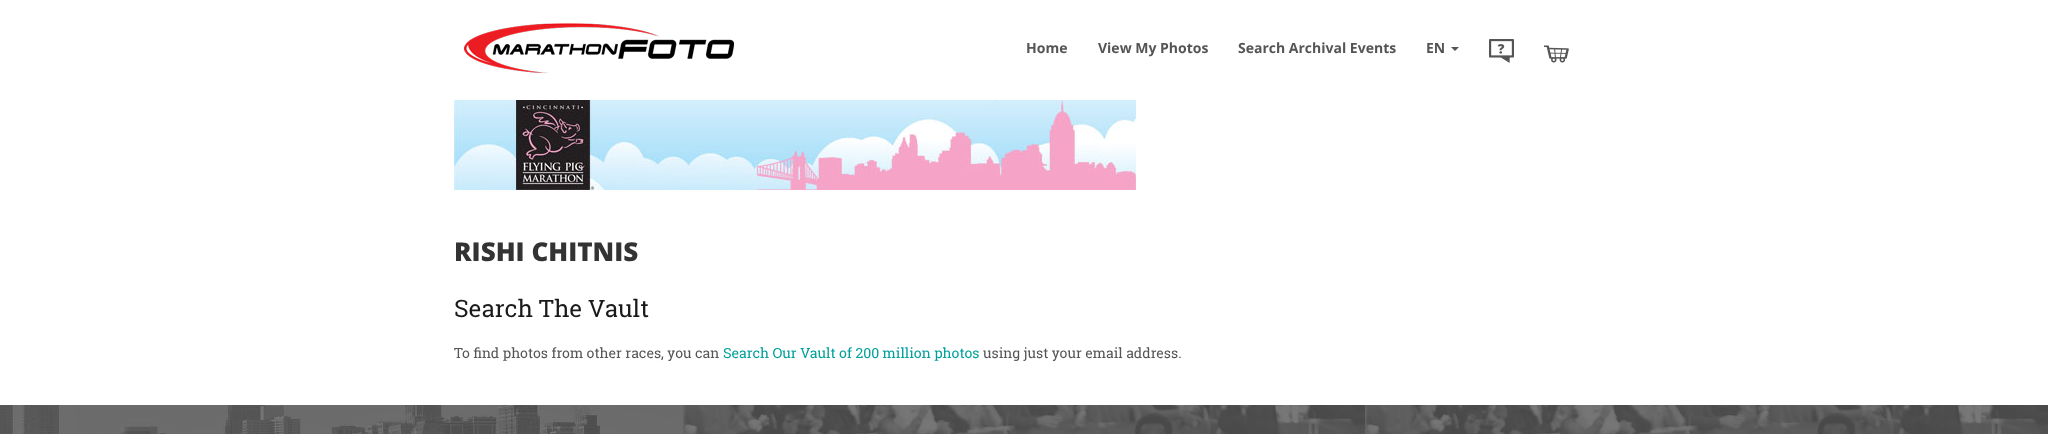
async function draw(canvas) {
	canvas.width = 2048;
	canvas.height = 434;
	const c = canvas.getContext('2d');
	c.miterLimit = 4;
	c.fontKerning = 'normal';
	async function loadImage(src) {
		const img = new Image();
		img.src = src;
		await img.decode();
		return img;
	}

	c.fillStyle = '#fff';
	c.fillRect(0, 0, 2048, 434);
	c.drawImage(await loadImage('img1.png'), 464, 23, 270, 51);
	c.font = 'bold 14px Open Sans';
	c.fillStyle = '#555';
	for (const [text, x, y] of [
		['Home', 1026, 53],
		['View My Photos', 1098, 53],
		['Search Archival Events', 1238, 53],
		['EN', 1426, 53],
	]) {
		c.fillText(text, x, y);
	}
	c.beginPath();
	c.moveTo(1451, 47);
	c.lineTo(1459, 47);
	c.lineTo(1455, 51);
	c.closePath();
	c.fill();
	c.drawImage(await loadImage('img2.png'), 1489, 39, 25, 24);
	c.drawImage(await loadImage('img3.png'), 1544, 45, 25, 18);
	c.drawImage(await loadImage('img4.png'), 454, 100, 682, 90);
	c.font = '800 26px Open Sans';
	c.fillStyle = '#333';
	c.fillText('RISHI CHITNIS', 454, 261);
	c.font = '24px Roboto Slab';
	c.fillStyle = '#1a1a1a';
	c.fillText('Search The Vault', 454, 317);
	c.font = '14px Roboto Slab';
	c.fillStyle = '#555';
	c.fillText('To find photos from other races, you can', 454, 358);
	c.fillStyle = '#02a09b';
	c.fillText('Search Our Vault of 200 million photos', 723, 358);
	c.fillStyle = '#555';
	c.fillText('using just your email address.', 983, 358);
	c.drawImage(await loadImage('img5.png'), 0, 405, 683, 29);
	c.drawImage(await loadImage('img6.png'), 683, 405, 682, 29);
	c.drawImage(await loadImage('img7.png'), 1365, 405, 683, 29);
}

draw(document.querySelector('canvas'));
